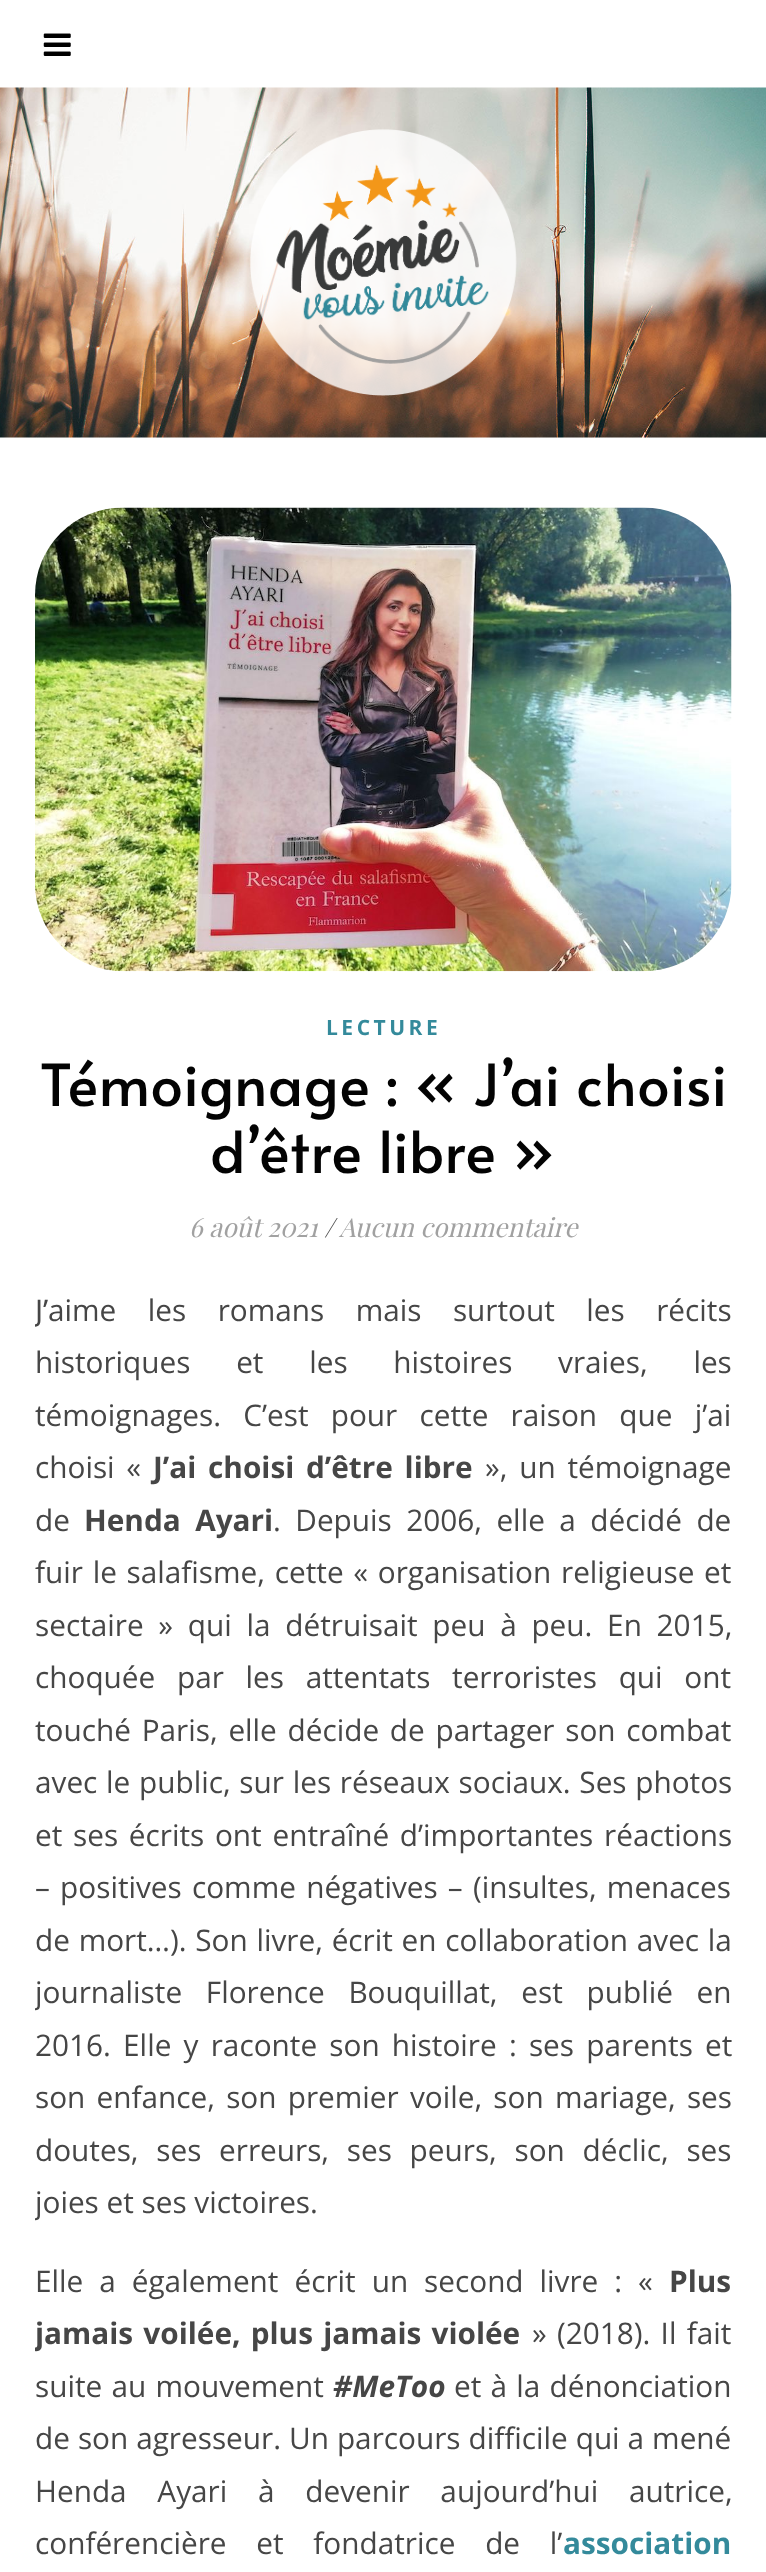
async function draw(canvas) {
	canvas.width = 766;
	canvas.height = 2572;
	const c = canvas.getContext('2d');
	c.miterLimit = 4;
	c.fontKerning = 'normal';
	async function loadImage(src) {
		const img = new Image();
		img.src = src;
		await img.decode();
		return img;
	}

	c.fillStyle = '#fff';
	c.fillRect(0, 0, 766, 2572);
	c.drawImage(await loadImage('img1.png'), 43, 33, 28, 23);
	c.drawImage(await loadImage('img2.png'), 0, 87, 766, 351);
	c.drawImage(await loadImage('img3.png'), 250, 129, 267, 267);
	c.drawImage(await loadImage('img4.png'), 35, 507, 697, 465);
	c.letterSpacing = '3.5px';
	c.font = 'bold 21px Open Sans';
	c.fillStyle = '#348a9b';
	c.fillText('LECTURE', 326, 1035);
	c.letterSpacing = '0.9px';
	c.font = '57.75px Alata';
	c.fillStyle = '#030303';
	c.fillText('Témoignage : « J’ai choisi', 40, 1106);
	c.fillText('d’être libre »', 210, 1173);
	c.letterSpacing = '0px';
	c.font = 'italic 26.25px Playfair Display';
	c.fillStyle = '#a1a1a1';
	c.fillText('6 août 2021', 189, 1237);
	c.fillStyle = '#464646';
	c.fillText('/', 324, 1237);
	c.fillStyle = '#a1a1a1';
	c.fillText('Aucun commentaire', 339, 1237);
	c.save();
	c.beginPath();
	c.rect(35, 1285, 697, 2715);
	c.clip();
	c.font = '29.75px Noto Sans';
	c.fillStyle = '#464646';
	c.fillText('J’', 35, 1321);
	c.restore();
	c.wordSpacing = '23.75px';
	c.font = '29.75px Open Sans';
	c.fillStyle = '#464646';
	c.fillText('aime les romans mais surtout les récits', 48, 1321);
	c.wordSpacing = '38px';
	c.fillText('historiques et les histoires vraies, les', 35, 1373);
	c.wordSpacing = '14.5px';
	c.fillText('témoignages. C’est pour cette raison que j’ai', 35, 1426);
	c.wordSpacing = '4px';
	c.fillText('choisi «', 35, 1478);
	c.font = 'bold 29.75px Open Sans';
	c.fillText('J’ai choisi d’être libre', 153, 1478);
	c.font = '29.75px Open Sans';
	c.fillText('», un témoignage', 485, 1478);
	c.wordSpacing = '0px';
	c.fillText('de', 35, 1531);
	c.wordSpacing = '6.75px';
	c.font = 'bold 29.75px Open Sans';
	c.fillText('Henda Ayari', 84, 1531);
	c.font = '29.75px Open Sans';
	c.fillText('. Depuis 2006, elle a décidé de', 273, 1531);
	c.wordSpacing = '2px';
	c.fillText('fuir le salafisme, cette « organisation religieuse et', 35, 1583);
	c.wordSpacing = '7px';
	c.fillText('sectaire » qui la détruisait peu à peu. En 2015,', 35, 1636);
	c.wordSpacing = '14px';
	c.fillText('choquée par les attentats terroristes qui ont', 35, 1688);
	c.wordSpacing = '3px';
	c.fillText('touché Paris, elle décide de partager son combat', 35, 1741);
	c.wordSpacing = '1px';
	c.fillText('avec le public, sur les réseaux sociaux. Ses photos', 35, 1793);
	c.wordSpacing = '3px';
	c.fillText('et ses écrits ont entraîné d’importantes réactions', 35, 1846);
	c.wordSpacing = '2.5px';
	c.fillText('– positives comme négatives – (insultes, menaces', 35, 1898);
	c.wordSpacing = '1px';
	c.fillText('de mort…). Son livre, écrit en collaboration avec la', 35, 1951);
	c.save();
	c.beginPath();
	c.rect(35, 1285, 697, 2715);
	c.clip();
	c.wordSpacing = '16px';
	c.fillText('journaliste Florence Bouquillat, est publié en', 35, 2003);
	c.restore();
	c.wordSpacing = '4.5px';
	c.fillText('2016. Elle y raconte son histoire : ses parents et', 35, 2056);
	c.wordSpacing = '3.5px';
	c.fillText('son enfance, son premier voile, son mariage, ses', 35, 2108);
	c.wordSpacing = '10px';
	c.fillText('doutes, ses erreurs, ses peurs, son déclic, ses', 35, 2161);
	c.save();
	c.beginPath();
	c.rect(35, 1285, 697, 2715);
	c.clip();
	c.wordSpacing = '0px';
	c.fillText('joies et ses victoires.', 35, 2213);
	c.restore();
	c.wordSpacing = '8.25px';
	c.fillText('Elle a également écrit un second livre : «', 35, 2292);
	c.wordSpacing = '0px';
	c.font = 'bold 29.75px Open Sans';
	c.fillText('Plus', 669, 2292);
	c.save();
	c.beginPath();
	c.rect(35, 1285, 697, 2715);
	c.clip();
	c.wordSpacing = '2.5px';
	c.fillText('jamais voilée, plus jamais violée', 35, 2344);
	c.restore();
	c.wordSpacing = '2.5px';
	c.font = '29.75px Open Sans';
	c.fillText('» (2018). Il fait', 532, 2344);
	c.wordSpacing = '1.5px';
	c.fillText('suite au mouvement', 35, 2397);
	c.wordSpacing = '0px';
	c.font = 'italic bold 29.75px Open Sans';
	c.fillText('#MeToo', 333, 2397);
	c.wordSpacing = '1.5px';
	c.font = '29.75px Open Sans';
	c.fillText('et à la dénonciation', 454, 2397);
	c.wordSpacing = '0.25px';
	c.fillText('de son agresseur. Un parcours difficile qui a mené', 35, 2449);
	c.wordSpacing = '23px';
	c.fillText('Henda Ayari à devenir aujourd’hui autrice,', 35, 2502);
	c.wordSpacing = '22px';
	c.fillText('conférencière et fondatrice de l’', 35, 2554);
	c.wordSpacing = '0px';
	c.font = 'bold 29.75px Open Sans';
	c.fillStyle = '#348a9b';
	c.fillText('association', 563, 2554);
}

draw(document.querySelector('canvas'));
